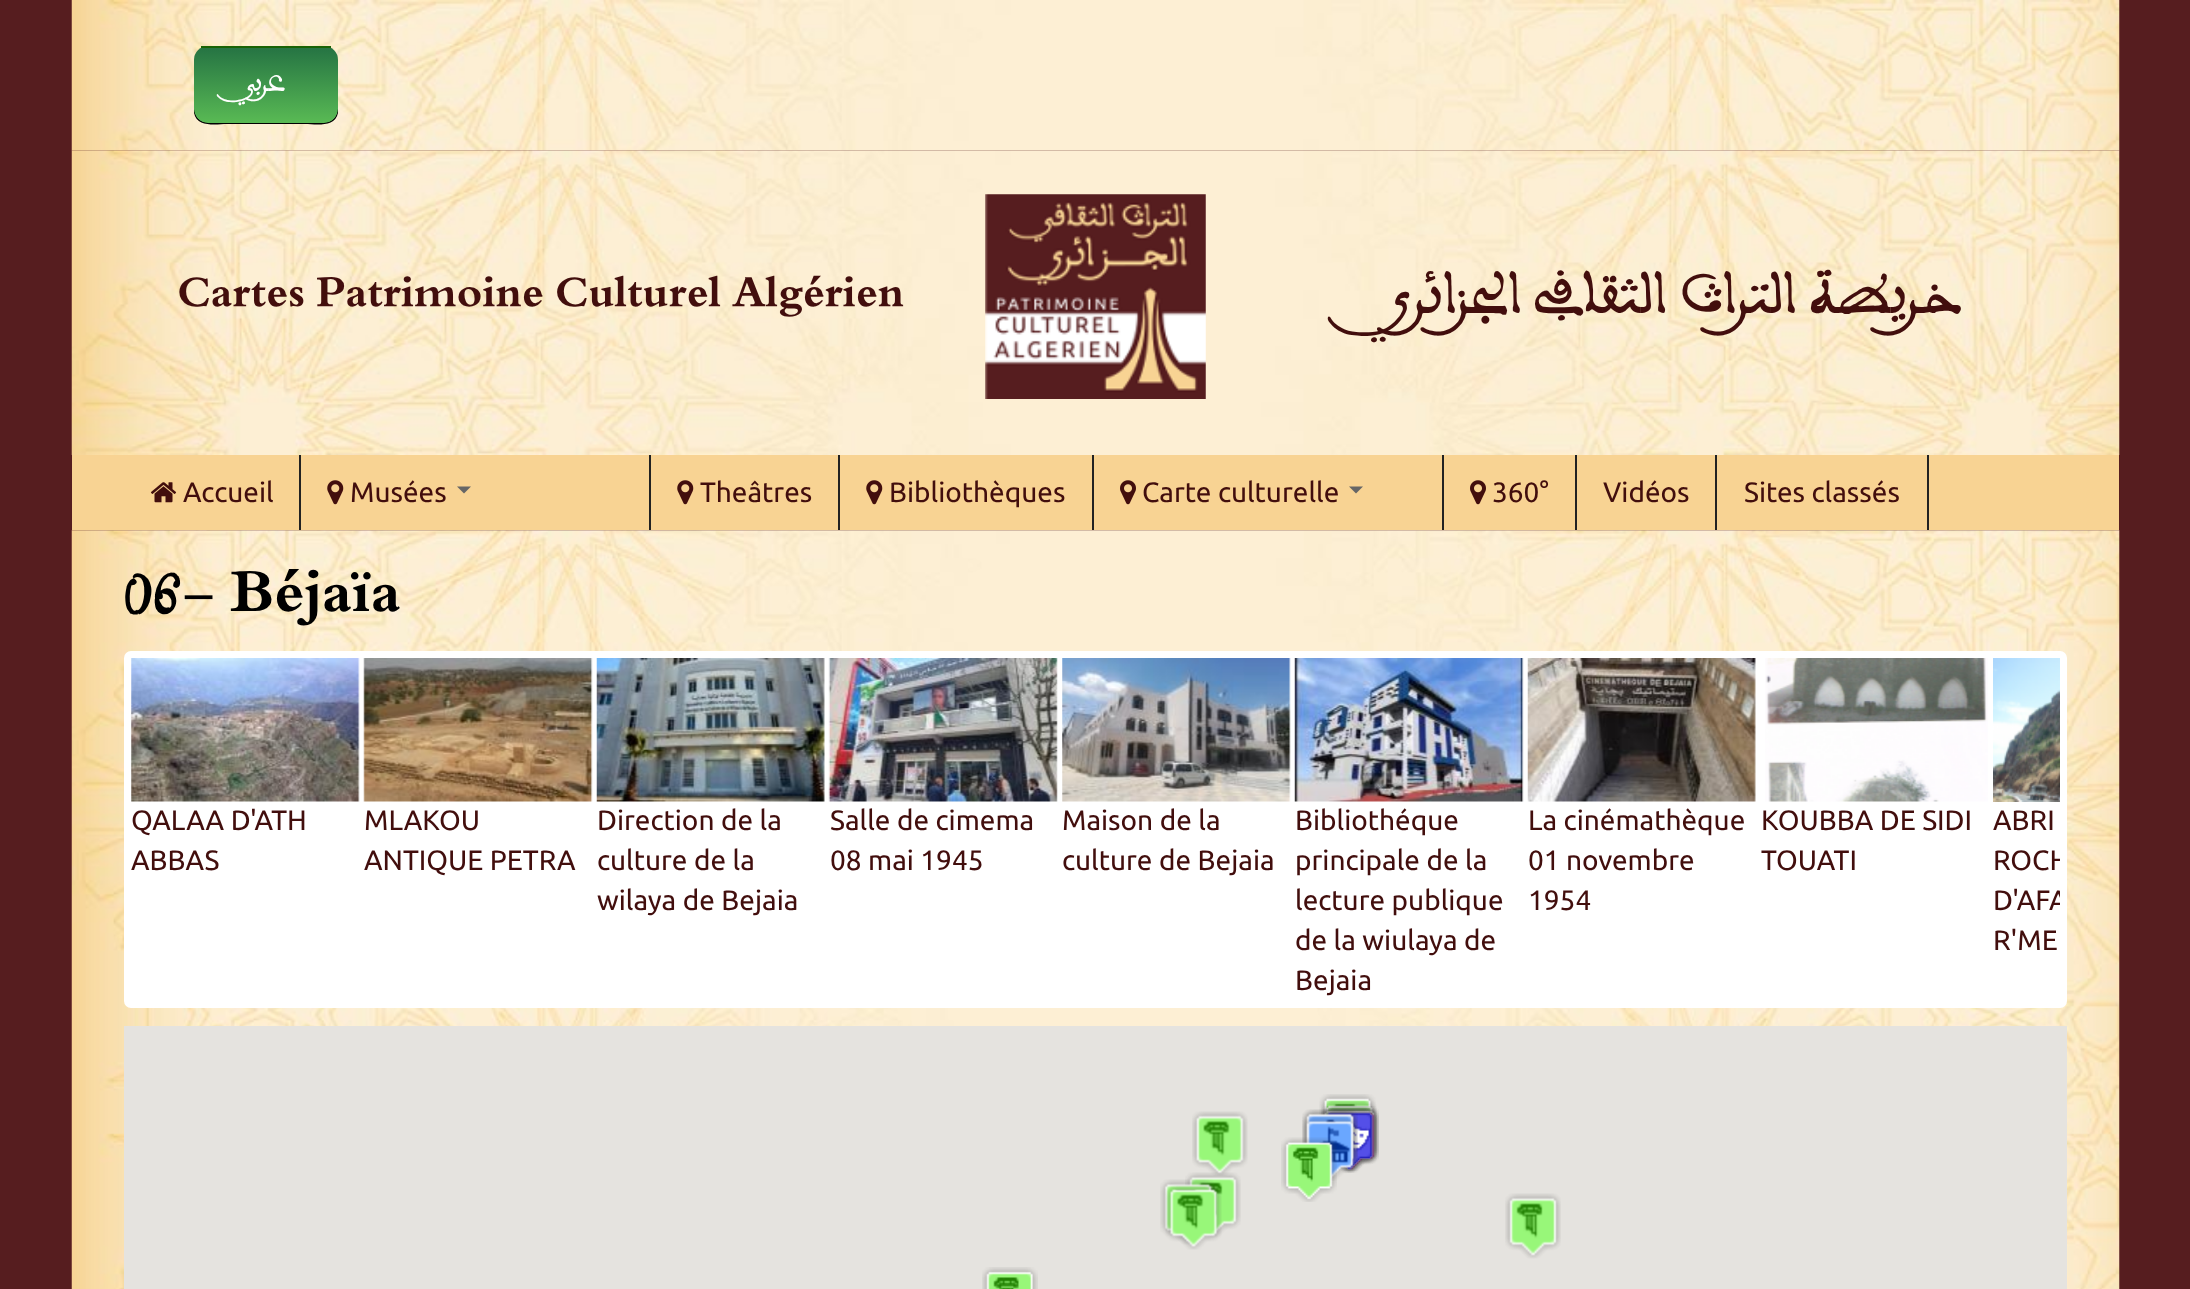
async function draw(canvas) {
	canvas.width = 2190;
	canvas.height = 1289;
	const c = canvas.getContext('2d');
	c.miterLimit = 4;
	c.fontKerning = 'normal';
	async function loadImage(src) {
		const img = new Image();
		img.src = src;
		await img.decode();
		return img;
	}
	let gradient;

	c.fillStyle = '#561d1f';
	c.fillRect(0, 0, 2190, 1289);
	c.drawImage(await loadImage('img1.png'), 71, 0, 2049, 151);
	c.fillStyle = '#000';
	c.beginPath();
	c.moveTo(194, 58);
	c.lineTo(194, 113);
	c.bezierCurveTo(197, 128, 217, 124, 227, 124);
	c.lineTo(305, 124);
	c.bezierCurveTo(315, 124, 335, 128, 338, 113);
	c.lineTo(338, 58);
	c.lineTo(337, 111);
	c.bezierCurveTo(334, 126, 315, 122, 304, 122);
	c.lineTo(228, 122);
	c.bezierCurveTo(217, 122, 198, 126, 195, 111);
	c.closePath();
	c.fill();
	c.save();
	c.beginPath();
	c.roundRect(194, 46, 144, 77, 14);
	c.clip();
	gradient = c.createLinearGradient(266, 47, 266, 123);
	gradient.addColorStop(0, '#257343');
	gradient.addColorStop(1, '#59ba54');
	c.fillStyle = gradient;
	c.beginPath();
	c.roundRect(194, 47, 144, 76, [0, 0, 14, 14]);
	c.fill();
	c.restore();
	c.fillStyle = '#196305';
	c.fillRect(201, 46, 130, 2);
	c.direction = 'rtl';
	c.font = 'bold 28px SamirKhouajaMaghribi';
	c.fillStyle = '#fff';
	c.fillText('عربي', 285, 91);
	c.drawImage(await loadImage('img2.png'), 71, 150, 2049, 305);
	c.direction = 'ltr';
	c.font = 'bold 45.5px SamirKhouajaMaghribi';
	c.fillStyle = '#420e0d';
	c.fillText('Cartes Patrimoine Culturel Algérien', 177, 309);
	c.drawImage(await loadImage('img3.png'), 985, 194, 221, 205);
	c.direction = 'rtl';
	c.font = 'bold 61.25px SamirKhouajaMaghribi';
	c.fillText('خريطة التراث الثقافي الجزائري', 1962, 313);
	c.fillStyle = '#f8d393';
	c.fillRect(72, 455, 2047, 75);
	c.fillStyle = '#222';
	c.fillRect(299, 455, 2, 75);
	c.drawImage(await loadImage('img4.png'), 150, 482, 27, 21);
	c.direction = 'ltr';
	c.font = '28px Ubuntu';
	c.fillStyle = '#420e0d';
	c.fillText('Accueil', 183, 502);
	c.fillStyle = '#222';
	c.fillRect(649, 455, 2, 75);
	c.drawImage(await loadImage('img5.png'), 327, 480, 17, 25);
	c.fillStyle = '#420e0d';
	c.fillText('Musées', 350, 502);
	c.fillStyle = '#666';
	c.beginPath();
	c.moveTo(457, 486.5);
	c.lineTo(471, 486.5);
	c.lineTo(464, 493.5);
	c.closePath();
	c.fill();
	c.fillStyle = '#222';
	c.fillRect(838, 455, 2, 75);
	c.drawImage(await loadImage('img5.png'), 677, 480, 17, 25);
	c.fillStyle = '#420e0d';
	c.fillText('Theâtres', 700, 502);
	c.fillStyle = '#222';
	c.fillRect(1092, 455, 2, 75);
	c.drawImage(await loadImage('img5.png'), 866, 480, 17, 25);
	c.fillStyle = '#420e0d';
	c.fillText('Bibliothèques', 889, 502);
	c.fillStyle = '#222';
	c.fillRect(1442, 455, 2, 75);
	c.drawImage(await loadImage('img6.png'), 1120, 480, 16, 25);
	c.fillStyle = '#420e0d';
	c.fillText('Carte culturelle', 1142, 502);
	c.fillStyle = '#666';
	c.beginPath();
	c.moveTo(1349, 486.5);
	c.lineTo(1363, 486.5);
	c.lineTo(1356, 493.5);
	c.closePath();
	c.fill();
	c.fillStyle = '#222';
	c.fillRect(1575, 455, 2, 75);
	c.drawImage(await loadImage('img6.png'), 1470, 480, 16, 25);
	c.fillStyle = '#420e0d';
	c.fillText('360°', 1492, 502);
	c.fillStyle = '#222';
	c.fillRect(1715, 455, 2, 75);
	c.fillStyle = '#420e0d';
	c.fillText('Vidéos', 1603, 502);
	c.fillStyle = '#222';
	c.fillRect(1927, 455, 2, 75);
	c.fillStyle = '#420e0d';
	c.fillText('Sites classés', 1744, 502);
	c.drawImage(await loadImage('img7.png'), 71, 530, 2049, 759);
	c.font = 'bold 63px SamirKhouajaMaghribi';
	c.fillStyle = '#000';
	c.fillText('06- Béjaïa', 124, 615);
	c.fillStyle = '#fff';
	c.beginPath();
	c.roundRect(127.5, 654.5, 1936, 350, 3.5);
	c.fill();
	c.strokeStyle = '#fff';
	c.lineWidth = 7;
	c.stroke();
	c.drawImage(await loadImage('img8.png'), 131, 658, 229, 144);
	c.font = '28px Ubuntu';
	c.fillStyle = '#420e0d';
	c.fillText('QALAA D\'ATH', 131, 830);
	c.fillText('ABBAS', 131, 870);
	c.drawImage(await loadImage('img9.png'), 363, 658, 230, 144);
	c.fillText('MLAKOU', 364, 830);
	c.fillText('ANTIQUE PETRA', 364, 870);
	c.drawImage(await loadImage('img10.png'), 596, 658, 229, 144);
	for (const [text, x, y] of [
		['Direction de la', 597, 830],
		['culture de la', 597, 870],
		['wilaya de Bejaia', 597, 910],
	]) {
		c.fillText(text, x, y);
	}
	c.drawImage(await loadImage('img11.png'), 828, 658, 230, 144);
	c.fillText('Salle de cimema', 830, 830);
	c.fillText('08 mai 1945', 830, 870);
	c.drawImage(await loadImage('img12.png'), 1062, 658, 229, 144);
	c.fillText('Maison de la', 1062, 830);
	c.fillText('culture de Bejaia', 1062, 870);
	c.drawImage(await loadImage('img13.png'), 1294, 658, 230, 144);
	for (const [text, x, y] of [
		['Bibliothéque', 1295, 830],
		['principale de la', 1295, 870],
		['lecture publique', 1295, 910],
		['de la wiulaya de', 1295, 950],
		['Bejaia', 1295, 990],
	]) {
		c.fillText(text, x, y);
	}
	c.drawImage(await loadImage('img14.png'), 1527, 658, 229, 144);
	for (const [text, x, y] of [
		['La cinémathèque', 1528, 830],
		['01 novembre', 1528, 870],
		['1954', 1528, 910],
	]) {
		c.fillText(text, x, y);
	}
	c.drawImage(await loadImage('img15.png'), 1765, 658, 223, 144);
	c.fillText('KOUBBA DE SIDI', 1761, 830);
	c.fillText('TOUATI', 1761, 870);
	c.drawImage(await loadImage('img16.png'), 1993, 658, 67, 144);
	c.fillText('ABRI', 1993, 830);
	c.save();
	c.beginPath();
	c.rect(131, 658, 1929, 343);
	c.clip();
	c.fillText('ROCH', 1993, 870);
	c.fillText('D\'AFA', 1993, 910);
	c.restore();
	c.fillText('R\'ME', 1993, 950);
	c.fillStyle = '#e5e3df';
	c.fillRect(124, 1026, 1943, 263);
	c.drawImage(await loadImage('img17.png'), 1319, 1094, 57, 52);
	c.drawImage(await loadImage('img18.png'), 1321, 1101, 56, 63);
	c.drawImage(await loadImage('img21.png'), 1323, 1106, 56, 65);
	c.drawImage(await loadImage('img20.png'), 1321, 1106, 56, 65);
	c.drawImage(await loadImage('img22.png'), 1323, 1106, 56, 65);
	c.drawImage(await loadImage('img19.png'), 1319, 1106, 56, 65);
	c.drawImage(await loadImage('img25.png'), 1323, 1108, 56, 65);
	c.drawImage(await loadImage('img23.png'), 1321, 1108, 56, 65);
	c.drawImage(await loadImage('img24.png'), 1321, 1108, 56, 65);
	c.drawImage(await loadImage('img26.png'), 1302, 1109, 56, 65);
	c.drawImage(await loadImage('img27.png'), 1192, 1111, 56, 65);
	c.drawImage(await loadImage('img28.png'), 1302, 1109, 56, 65);
	c.drawImage(await loadImage('img29.png'), 1302, 1116, 56, 65);
	c.drawImage(await loadImage('img30.png'), 1185, 1172, 56, 66);
	c.drawImage(await loadImage('img31.png'), 1281, 1137, 56, 65);
	c.drawImage(await loadImage('img32.png'), 1160, 1179, 56, 66);
	c.drawImage(await loadImage('img33.png'), 1165, 1185, 57, 65);
	c.drawImage(await loadImage('img34.png'), 1505, 1193, 56, 66);
	c.drawImage(await loadImage('img35.png'), 982, 1267, 56, 22);
}

draw(document.querySelector('canvas'));
